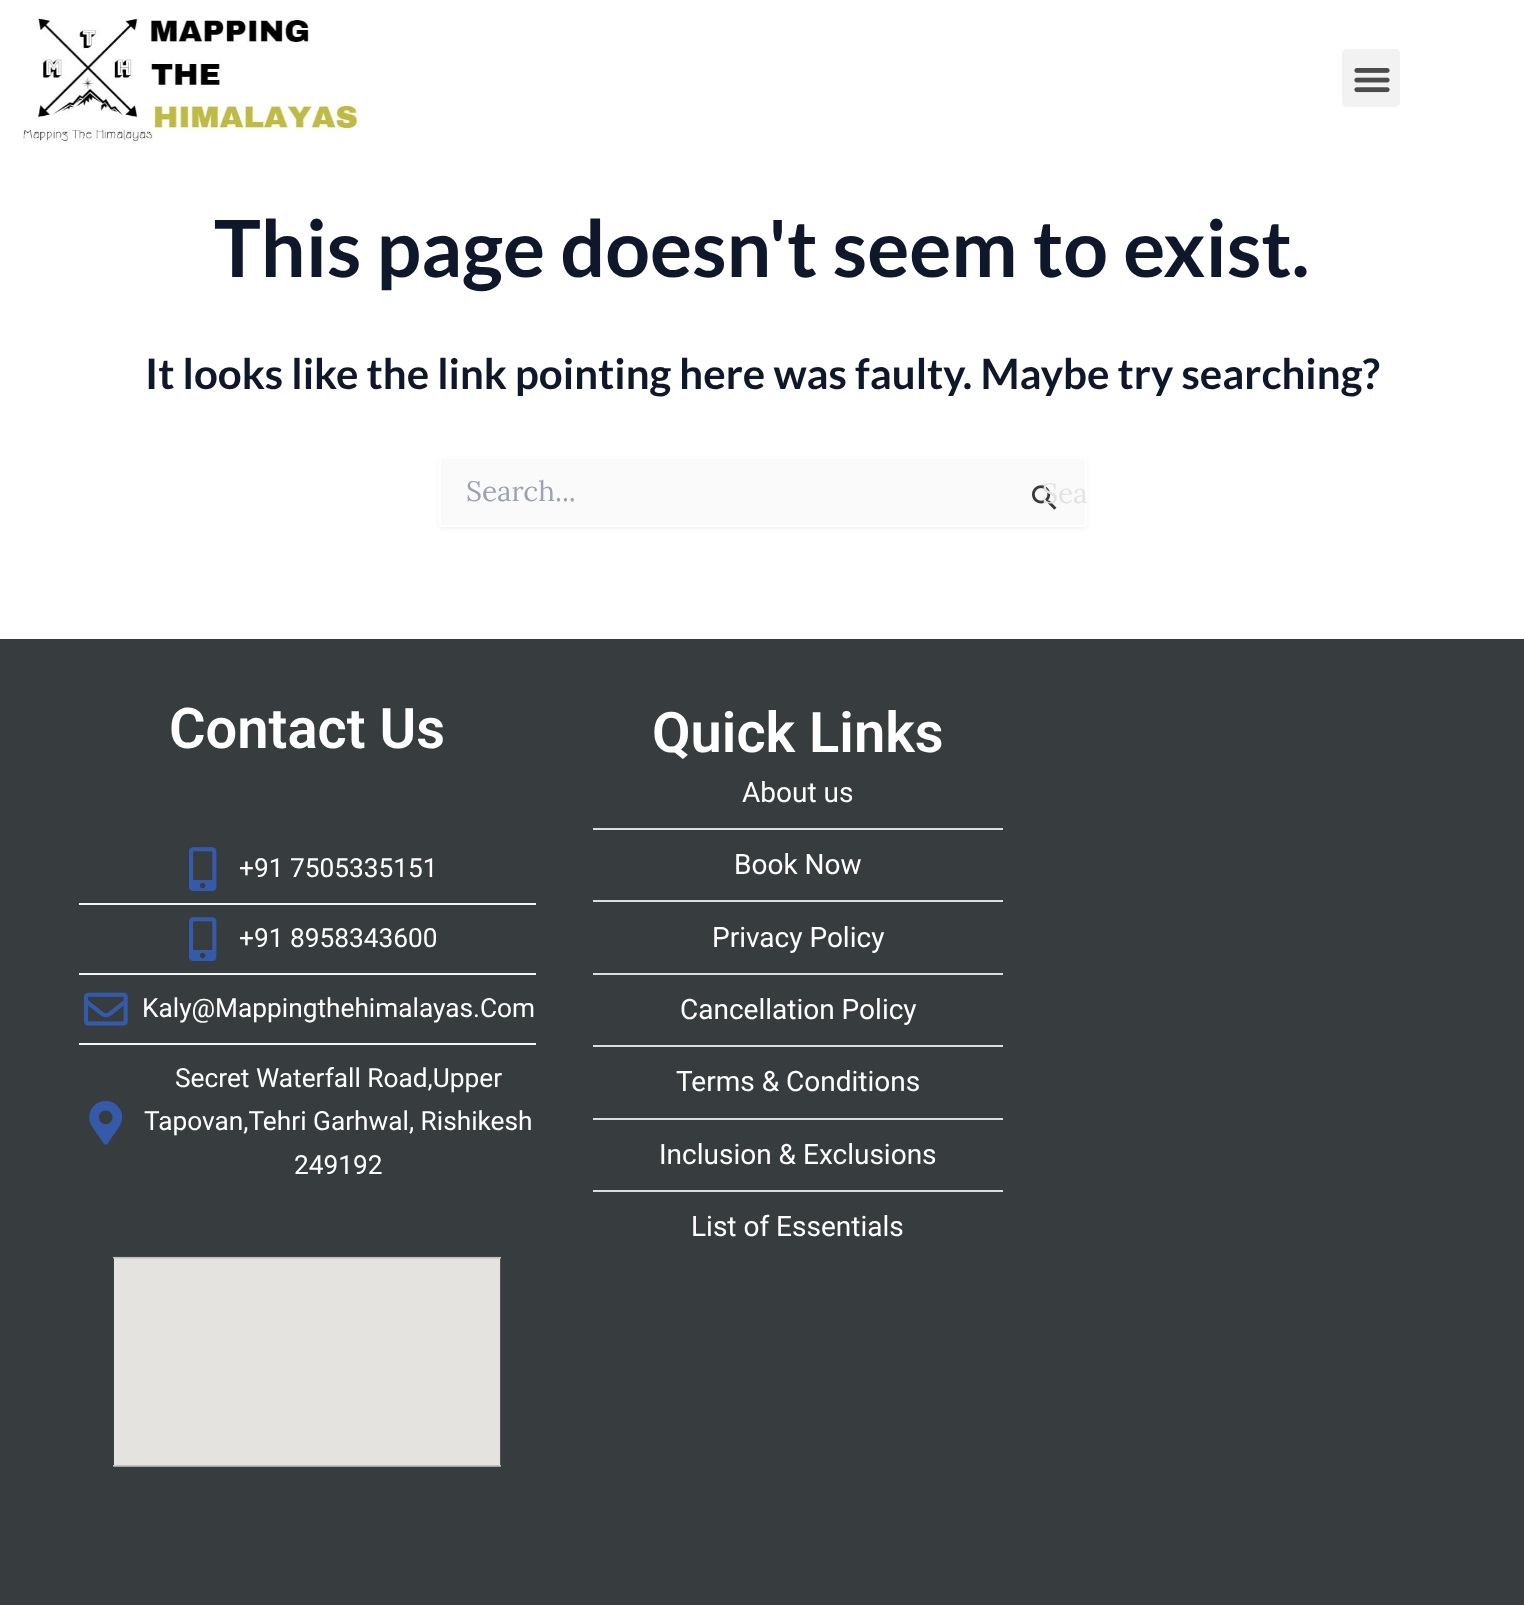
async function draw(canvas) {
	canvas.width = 1524;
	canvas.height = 1605;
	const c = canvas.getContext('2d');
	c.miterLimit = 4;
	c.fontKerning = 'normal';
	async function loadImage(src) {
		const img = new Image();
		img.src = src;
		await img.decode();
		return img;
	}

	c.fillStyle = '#fff';
	c.fillRect(0, 0, 1524, 1605);
	c.drawImage(await loadImage('img1.png'), 21, 16, 338, 127);
	c.fillStyle = '#f2f2f2';
	c.beginPath();
	c.roundRect(1342, 49, 58, 58, 5);
	c.fill();
	c.drawImage(await loadImage('img2.png'), 1354, 68, 36, 25);
	c.font = 'bold 78.75px Lato';
	c.fillStyle = '#0f172a';
	c.fillText('This page doesn\'t seem to exist.', 214, 277);
	c.font = 'bold 42px Lato';
	c.fillText('It looks like the link pointing here was faulty. Maybe try searching?', 145, 389);
	c.fillStyle = '#0000000d';
	c.filter = 'blur(2px)';
	c.beginPath();
	c.roundRect(439, 459, 648, 70, 4);
	c.fill();
	c.filter = 'none';
	c.fillStyle = '#fafafa';
	c.beginPath();
	c.roundRect(440, 458, 646, 68, 3);
	c.fill();
	c.strokeStyle = '#fff';
	c.lineWidth = 2;
	c.stroke();
	c.font = '28px Lora';
	c.fillStyle = '#9ca3af';
	c.fillText('Search...', 466, 501);
	c.drawImage(await loadImage('img3.png'), 1032, 485, 25, 25);
	c.fillStyle = '#e3e3e3';
	c.fillText('Sea', 1042, 503);
	c.fillStyle = '#373c3e';
	c.fillRect(0, 639, 1524, 966);
	c.font = '600 56px Roboto';
	c.fillStyle = '#fff';
	c.fillText('Contact Us', 169, 748);
	c.drawImage(await loadImage('img4.png'), 189, 847, 28, 44);
	c.font = '26.25px Roboto';
	c.fillText('+91 7505335151', 239, 877);
	c.fillStyle = '#f4f4f4';
	c.fillRect(79, 903, 457, 2);
	c.drawImage(await loadImage('img4.png'), 189, 917, 28, 44);
	c.fillStyle = '#fff';
	c.fillText('+91 8958343600', 239, 947);
	c.fillStyle = '#f4f4f4';
	c.fillRect(79, 973, 457, 2);
	c.drawImage(await loadImage('img5.png'), 84, 992, 44, 34);
	c.fillStyle = '#fff';
	c.fillText('Kaly@Mappingthehimalayas.Com', 142, 1017);
	c.fillStyle = '#f4f4f4';
	c.fillRect(79, 1043, 457, 2);
	c.drawImage(await loadImage('img6.png'), 89, 1101, 34, 44);
	c.fillStyle = '#fff';
	for (const [text, x, y] of [
		['Secret Waterfall Road,Upper', 175, 1087],
		['Tapovan,Tehri Garhwal, Rishikesh', 144, 1130],
		['249192', 294, 1174],
	]) {
		c.fillText(text, x, y);
	}
	c.drawImage(await loadImage('img7.png'), 113, 1256, 388, 211);
	c.font = '600 56px Roboto';
	c.fillText('Quick Links', 652, 752);
	c.font = '28px Roboto';
	c.fillText('About us', 742, 802);
	c.fillStyle = '#ddd';
	c.fillRect(593, 828, 410, 2);
	c.fillStyle = '#fff';
	c.fillText('Book Now', 734, 874);
	c.fillStyle = '#ddd';
	c.fillRect(593, 900, 410, 2);
	c.fillStyle = '#fff';
	c.fillText('Privacy Policy', 712, 947);
	c.fillStyle = '#ddd';
	c.fillRect(593, 973, 410, 2);
	c.fillStyle = '#fff';
	c.fillText('Cancellation Policy', 680, 1019);
	c.fillStyle = '#ddd';
	c.fillRect(593, 1045, 410, 2);
	c.fillStyle = '#fff';
	c.fillText('Terms & Conditions', 676, 1091);
	c.fillStyle = '#ddd';
	c.fillRect(593, 1118, 410, 2);
	c.fillStyle = '#fff';
	c.fillText('Inclusion & Exclusions', 659, 1164);
	c.fillStyle = '#ddd';
	c.fillRect(593, 1190, 410, 2);
	c.fillStyle = '#fff';
	c.fillText('List of Essentials', 691, 1236);
}

draw(document.querySelector('canvas'));
